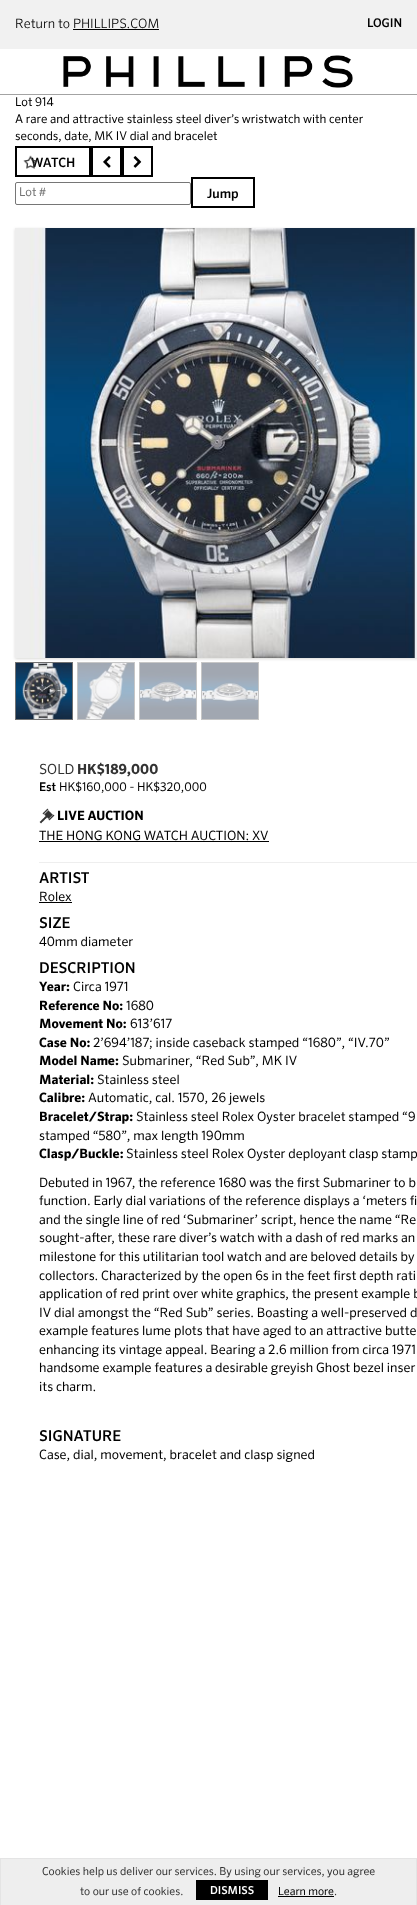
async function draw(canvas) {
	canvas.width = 417;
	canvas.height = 1905;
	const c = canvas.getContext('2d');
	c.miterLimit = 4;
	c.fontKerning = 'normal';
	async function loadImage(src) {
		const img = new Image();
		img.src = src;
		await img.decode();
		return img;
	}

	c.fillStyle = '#fff';
	c.fillRect(0, 0, 417, 1905);
	c.fillStyle = '#a3a3a3';
	c.fillRect(0, 94, 417, 1);
	c.fillStyle = '#f1f1f1';
	c.fillRect(0, 0, 417, 49);
	c.font = '300 13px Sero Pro';
	c.fillStyle = '#000';
	c.fillText('Return to PHILLIPS.COM', 15, 28);
	c.fillRect(73, 29, 86, 1);
	c.font = '500 12px Sero Pro';
	c.fillText('LOGIN', 367, 27);
	c.drawImage(await loadImage('img1.png'), 63, 55, 290, 33);
	c.font = '12px Sero Pro';
	for (const [text, x, y] of [
		['Lot 914', 15, 106],
		['A rare and attractive stainless steel diver’s wristwatch with center', 15, 123],
		['seconds, date, MK IV dial and bracelet', 15, 140],
	]) {
		c.fillText(text, x, y);
	}
	c.strokeStyle = '#000';
	c.lineWidth = 2;
	c.strokeRect(16, 147, 74, 29);
	c.font = '500 13px Sero Pro';
	c.fillText('WATCH', 31, 167);
	c.drawImage(await loadImage('img2.png'), 23, 155, 15, 14);
	c.strokeRect(92, 147, 29, 29);
	c.drawImage(await loadImage('img3.png'), 103, 156, 8, 12);
	c.strokeRect(123, 147, 29, 29);
	c.drawImage(await loadImage('img4.png'), 133, 156, 9, 12);
	c.beginPath();
	c.roundRect(15.5, 182.5, 175, 22, 1.5);
	c.strokeStyle = '#767676';
	c.lineWidth = 1;
	c.stroke();
	c.font = '12px Sero Pro';
	c.fillStyle = '#757575';
	c.fillText('Lot #', 19, 196);
	c.strokeStyle = '#000';
	c.lineWidth = 2;
	c.strokeRect(192, 178, 62, 29);
	c.font = '500 13px Sero Pro';
	c.fillStyle = '#000';
	c.fillText('Jump', 207, 198);
	c.fillStyle = '#dad9d7';
	c.filter = 'blur(1.5px)';
	c.beginPath();
	c.rect(15, 229, 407, 430);
	c.fill();
	c.filter = 'none';
	c.drawImage(await loadImage('img5.png'), 15, 228, 402, 430);
	c.strokeStyle = '#717171';
	c.lineWidth = 1;
	c.strokeRect(15.5, 662.5, 57, 57);
	c.strokeStyle = '#c6c6c6';
	c.strokeRect(77.5, 662.5, 57, 57);
	c.strokeRect(139.5, 662.5, 57, 57);
	c.strokeRect(201.5, 662.5, 57, 57);
	c.drawImage(await loadImage('img6.png'), 16, 663, 56, 56);
	c.drawImage(await loadImage('img7.png'), 78, 663, 56, 56);
	c.drawImage(await loadImage('img8.png'), 140, 663, 56, 56);
	c.drawImage(await loadImage('img9.png'), 202, 663, 56, 56);
	c.font = '14px Sero Pro';
	c.fillStyle = '#333';
	c.fillText('SOLD', 39, 774);
	c.font = 'bold 14px Sero Pro';
	c.fillText('HK$189,000', 77, 774);
	c.font = '500 12px Sero Pro';
	c.fillStyle = '#000';
	c.fillText('Est', 39, 791);
	c.font = '12px Sero Pro';
	c.fillText('HK$160,000 - HK$320,000', 59, 791);
	c.drawImage(await loadImage('img10.png'), 39, 808, 16, 16);
	c.font = 'bold 13px Sero Pro';
	c.fillText('LIVE AUCTION', 57, 820);
	c.font = '13px Sero Pro';
	c.fillText('THE HONG KONG WATCH AUCTION: XV', 39, 840);
	c.fillRect(39, 841, 230, 1);
	c.fillStyle = '#eee';
	c.fillRect(39, 862, 378, 1);
	c.font = '500 15px Sero Pro';
	c.fillStyle = '#000';
	c.fillText('ARTIST', 39, 883);
	c.font = '13px Sero Pro';
	c.fillText('Rolex', 39, 901);
	c.fillRect(39, 902, 33, 1);
	c.font = '500 15px Sero Pro';
	c.fillText('SIZE', 39, 928);
	c.font = '13px Sero Pro';
	c.fillText('40mm diameter', 39, 946);
	c.font = '500 15px Sero Pro';
	c.fillText('DESCRIPTION', 39, 973);
	c.font = 'bold 13px Sero Pro';
	c.fillText('Year:', 39, 991);
	c.font = '13px Sero Pro';
	c.fillText('Circa 1971', 73, 991);
	c.font = 'bold 13px Sero Pro';
	c.fillText('Reference No:', 39, 1010);
	c.font = '13px Sero Pro';
	c.fillText('1680', 126, 1010);
	c.font = 'bold 13px Sero Pro';
	c.fillText('Movement No:', 39, 1028);
	c.font = '13px Sero Pro';
	c.fillText('613’617', 130, 1028);
	c.font = 'bold 13px Sero Pro';
	c.fillText('Case No:', 39, 1047);
	c.font = '13px Sero Pro';
	c.fillText('2’694’187; inside caseback stamped “1680”, “IV.70”', 93, 1047);
	c.font = 'bold 13px Sero Pro';
	c.fillText('Model Name:', 39, 1065);
	c.font = '13px Sero Pro';
	c.fillText('Submariner, “Red Sub”, MK IV', 122, 1065);
	c.font = 'bold 13px Sero Pro';
	c.fillText('Material:', 39, 1084);
	c.font = '13px Sero Pro';
	c.fillText('Stainless steel', 97, 1084);
	c.font = 'bold 13px Sero Pro';
	c.fillText('Calibre:', 39, 1102);
	c.font = '13px Sero Pro';
	c.fillText('Automatic, cal. 1570, 26 jewels', 88, 1102);
	c.font = 'bold 13px Sero Pro';
	c.fillText('Bracelet/Strap:', 39, 1121);
	c.font = '13px Sero Pro';
	c.fillText('Stainless steel Rolex Oyster bracelet stamped “9', 136, 1121);
	c.fillText('stamped “580”, max length 190mm', 39, 1140);
	c.font = 'bold 13px Sero Pro';
	c.fillText('Clasp/Buckle:', 39, 1158);
	c.font = '13px Sero Pro';
	for (const [text, x, y] of [
		['Stainless steel Rolex Oyster deployant clasp stamp', 126, 1158],
		['Debuted in 1967, the reference 1680 was the first Submariner to b', 39, 1187],
		['function. Early dial variations of the reference displays a ‘meters fi', 39, 1205],
		['and the single line of red ‘Submariner’ script, hence the name “Re', 39, 1224],
		['sought-after, these rare diver’s watch with a dash of red marks an', 39, 1242],
		['milestone for this utilitarian tool watch and are beloved details by', 39, 1261],
		['collectors. Characterized by the open 6s in the feet first depth rati', 39, 1280],
		['application of red print over white graphics, the present example b', 39, 1298],
		['IV dial amongst the “Red Sub” series. Boasting a well-preserved d', 39, 1317],
		['example features lume plots that have aged to an attractive butte', 39, 1335],
		['enhancing its vintage appeal. Bearing a 2.6 million from circa 1971', 39, 1354],
		['handsome example features a desirable greyish Ghost bezel inser', 39, 1372],
		['its charm.', 39, 1391],
	]) {
		c.fillText(text, x, y);
	}
	c.font = '500 15px Sero Pro';
	c.fillText('SIGNATURE', 39, 1441);
	c.font = '13px Sero Pro';
	c.fillText('Case, dial, movement, bracelet and clasp signed', 39, 1459);
	for (const [x, y, w, h, color] of [
		[1, 1859, 415, 46, '#eee'],
		[0, 1858, 417, 1, '#e4e4e4'],
		[416, 1858, 1, 47, '#e4e4e4'],
		[0, 1858, 1, 47, '#e4e4e4'],
	]) {
		c.fillStyle = color;
		c.fillRect(x, y, w, h);
	}
	c.font = '11px Sero Pro';
	c.fillStyle = '#333';
	c.fillText('Cookies help us deliver our services. By using our services, you agree', 42, 1875);
	c.fillText('to our use of cookies.', 80, 1895);
	c.fillStyle = '#000';
	c.fillRect(196, 1880, 72, 20);
	c.font = '500 11px Sero Pro';
	c.fillStyle = '#fff';
	c.fillText('DISMISS', 210, 1894);
	c.font = '11px Sero Pro';
	c.fillStyle = '#000';
	c.fillText('Learn more', 278, 1895);
	c.fillRect(278, 1896, 56, 1);
	c.fillStyle = '#333';
	c.fillText('.', 334, 1895);
}

draw(document.querySelector('canvas'));
